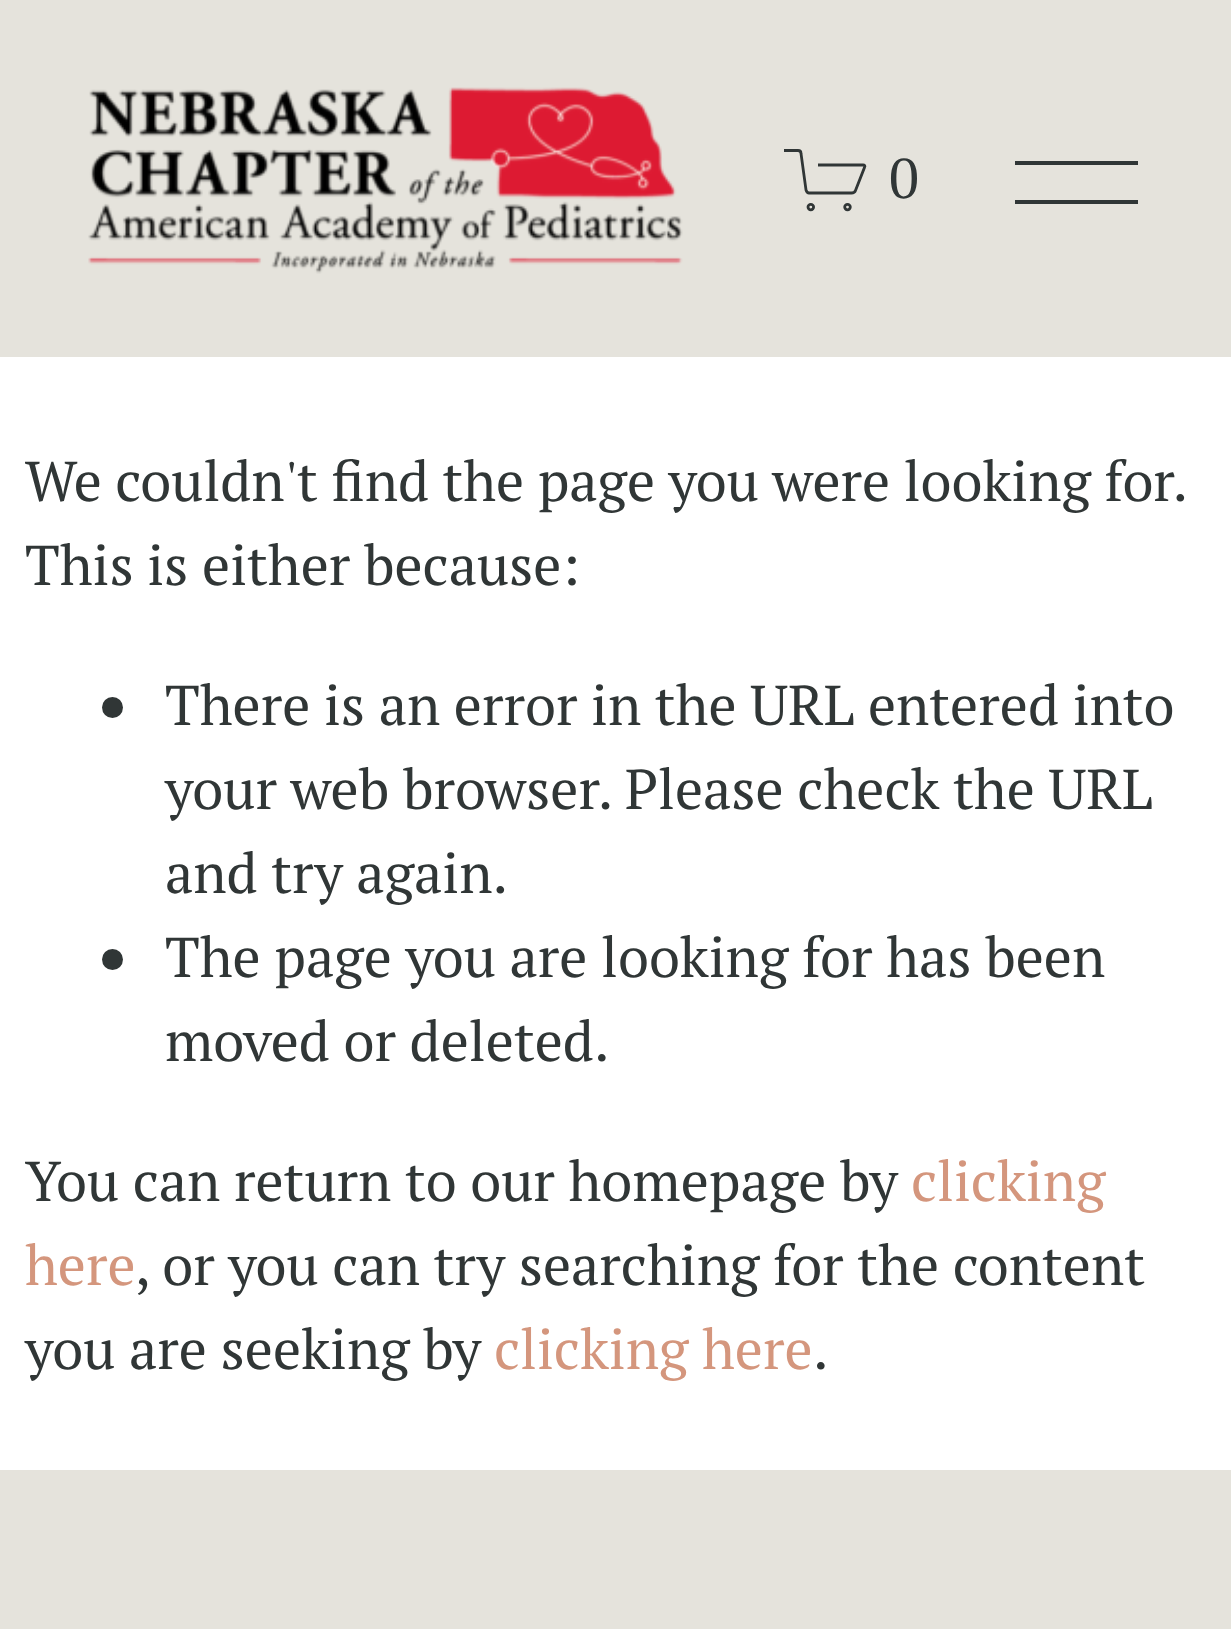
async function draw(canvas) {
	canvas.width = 1231;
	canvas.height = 1629;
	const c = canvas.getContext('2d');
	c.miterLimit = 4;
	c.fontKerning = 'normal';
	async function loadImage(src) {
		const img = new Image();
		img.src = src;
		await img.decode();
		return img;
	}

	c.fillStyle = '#fff';
	c.fillRect(0, 0, 1231, 1629);
	c.fillStyle = '#e5e3dc';
	c.fillRect(0, 0, 1231, 357);
	c.drawImage(await loadImage('img1.png'), 88, 87, 595, 187);
	c.beginPath();
	c.arc(847.5, 207.1, 2.8, 0, 2 * Math.PI);
	c.strokeStyle = '#303636';
	c.lineWidth = 2.8;
	c.stroke();
	c.beginPath();
	c.arc(810.8, 207.1, 2.8, 0, 2 * Math.PI);
	c.stroke();
	c.beginPath();
	c.moveTo(784, 150.5);
	c.lineTo(798, 150.5);
	c.bezierCurveTo(800, 150.5, 801, 151.5, 801, 153.5);
	c.lineTo(806, 190);
	c.bezierCurveTo(806.5, 191.5, 807.5, 193, 809, 193);
	c.lineTo(851.5, 193);
	c.bezierCurveTo(853, 193, 855, 192, 855.5, 190.5);
	c.lineTo(864.5, 167.5);
	c.bezierCurveTo(865.5, 166, 864.5, 165, 863, 165);
	c.lineTo(818, 165);
	c.stroke();
	c.font = '56px PT Serif';
	c.fillStyle = '#303636';
	c.fillText('0', 889, 198);
	c.fillRect(1015, 161, 123, 4);
	c.fillRect(1015, 200, 123, 4);
	c.wordSpacing = '-0.25px';
	c.fillText('We couldn\'t find the page you were looking for.', 25, 501);
	c.wordSpacing = '0px';
	c.fillText('This is either because:', 25, 585);
	c.beginPath();
	c.arc(112.5, 707.5, 10.5, 0, 2 * Math.PI);
	c.fill();
	for (const [text, x, y] of [
		['There is an error in the URL entered into', 165, 725],
		['your web browser. Please check the URL', 165, 809],
		['and try again.', 165, 893],
	]) {
		c.fillText(text, x, y);
	}
	c.beginPath();
	c.arc(112.5, 959.5, 10.5, 0, 2 * Math.PI);
	c.fill();
	for (const [text, x, y] of [
		['The page you are looking for has been', 165, 977],
		['moved or deleted.', 165, 1061],
		['You can return to our homepage by', 25, 1201],
	]) {
		c.fillText(text, x, y);
	}
	c.fillStyle = '#d4967d';
	c.fillText('clicking', 911, 1201);
	c.fillText('here', 25, 1285);
	c.fillStyle = '#303636';
	c.fillText(', or you can try searching for the content', 135, 1285);
	c.fillText('you are seeking by', 25, 1369);
	c.fillStyle = '#d4967d';
	c.fillText('clicking here', 494, 1369);
	c.fillStyle = '#303636';
	c.fillText('.', 813, 1369);
	c.fillStyle = '#e5e3dc';
	c.fillRect(0, 1470, 1231, 159);
}

draw(document.querySelector('canvas'));
